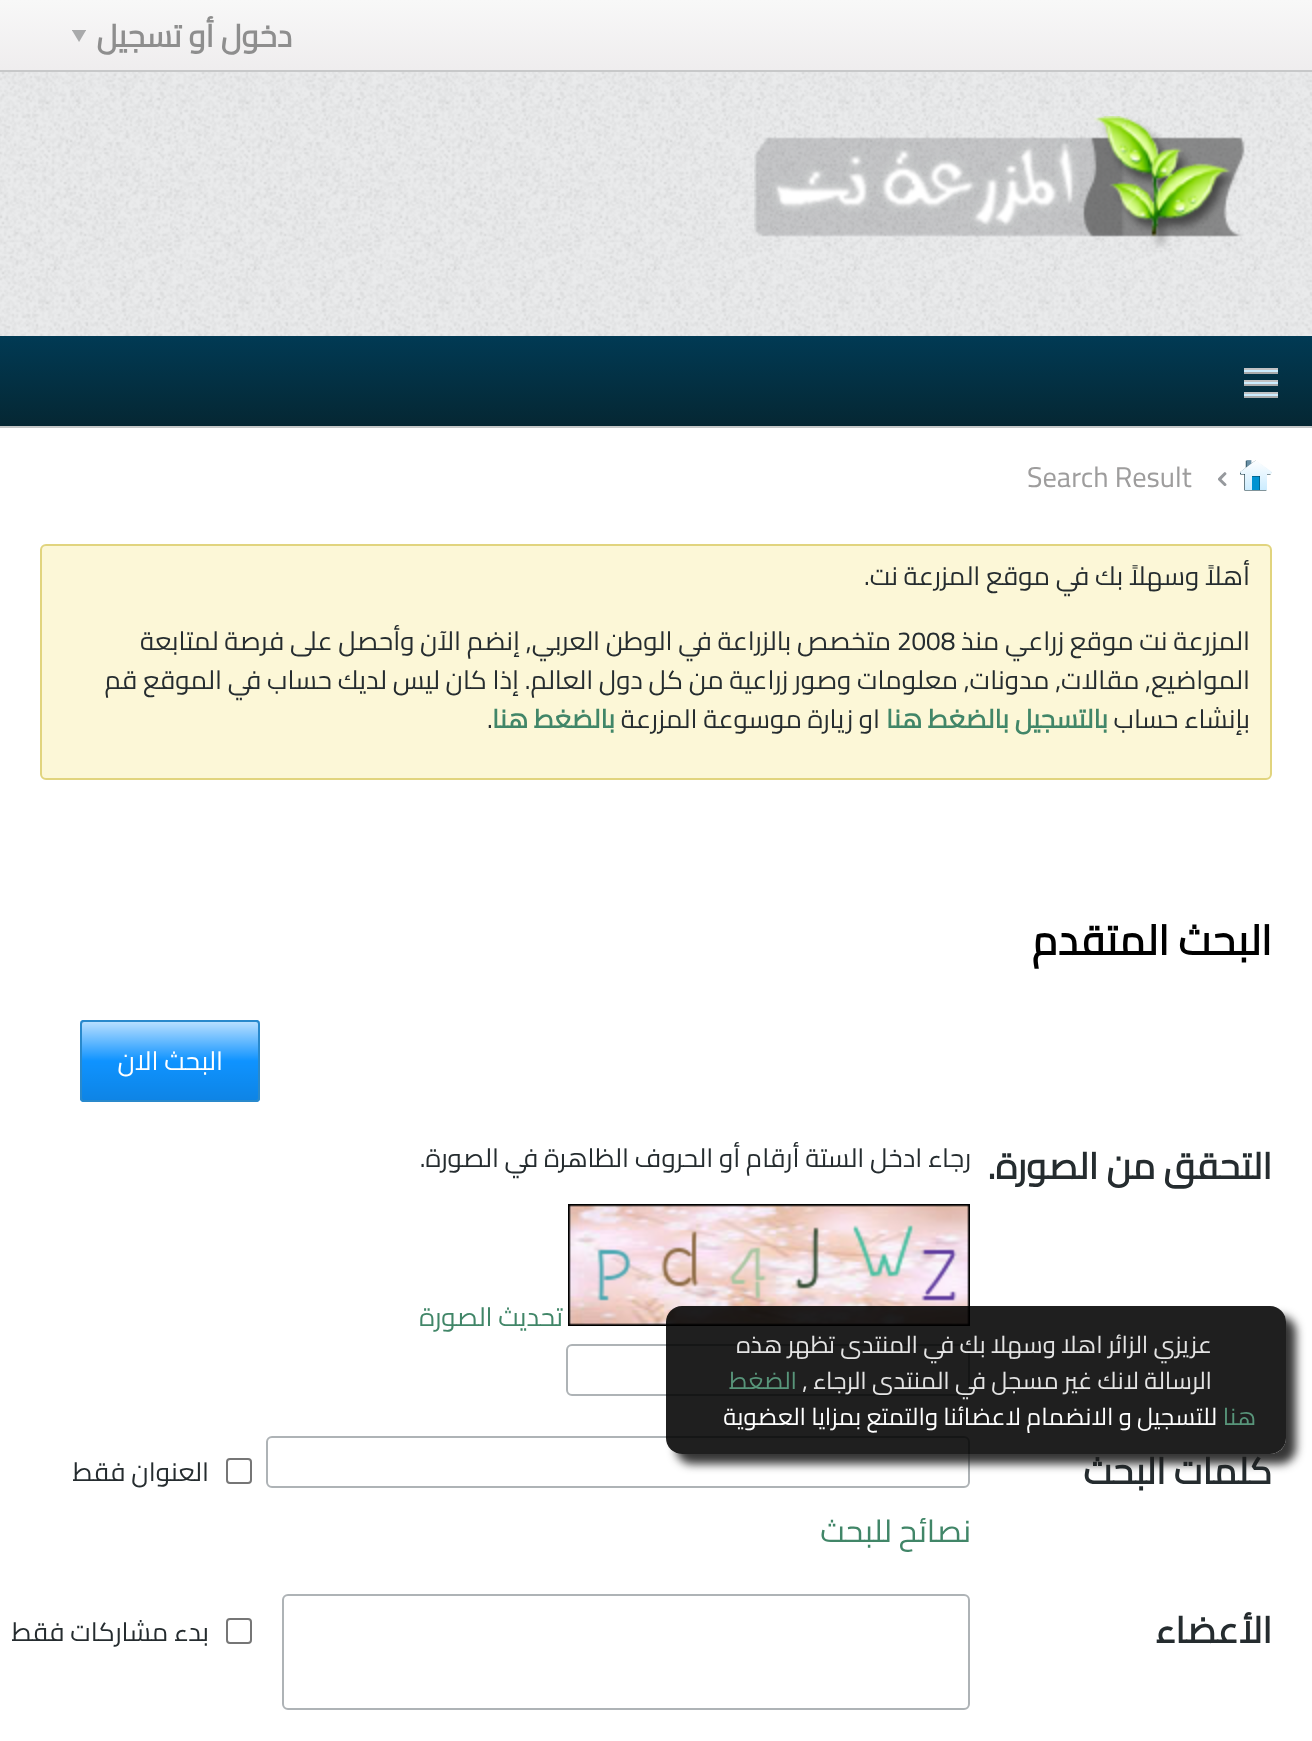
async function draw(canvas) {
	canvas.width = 1312;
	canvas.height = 1741;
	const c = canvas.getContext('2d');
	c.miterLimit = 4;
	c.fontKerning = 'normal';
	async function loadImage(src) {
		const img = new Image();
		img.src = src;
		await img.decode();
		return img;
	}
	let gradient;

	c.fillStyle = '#fff';
	c.fillRect(0, 0, 1312, 1741);
	gradient = c.createLinearGradient(656, 0, 656, 70);
	gradient.addColorStop(0, '#f8f8f8');
	gradient.addColorStop(1, '#efedee');
	c.fillStyle = gradient;
	c.fillRect(0, 0, 1312, 70);
	c.fillStyle = '#c7c8c9';
	c.fillRect(0, 70, 1312, 2);
	c.direction = 'rtl';
	c.font = 'bold 31.25px Cairo';
	c.fillStyle = '#8e8e8e';
	c.fillText('دخول أو تسجيل', 292, 47);
	c.drawImage(await loadImage('img1.png'), 72, 30, 14, 12);
	c.fillStyle = '#eaebec';
	c.fillRect(0, 72, 1312, 264);
	c.drawImage(await loadImage('img2.png'), 0, 72, 1312, 264);
	c.drawImage(await loadImage('img3.png'), 754, 116, 491, 133);
	gradient = c.createLinearGradient(656, 336, 656, 426);
	gradient.addColorStop(0, '#013a54');
	gradient.addColorStop(1, '#052733');
	c.fillStyle = gradient;
	c.fillRect(0, 336, 1312, 90);
	c.fillStyle = '#c4c7c8';
	c.fillRect(0, 426, 1312, 2);
	c.drawImage(await loadImage('img4.png'), 1244, 368, 34, 30);
	c.drawImage(await loadImage('img5.png'), 1240, 460, 32, 31);
	c.drawImage(await loadImage('img6.png'), 1218, 472, 9, 14);
	c.direction = 'ltr';
	c.font = '28.5px Cairo';
	c.fillStyle = '#9e9d9d';
	c.fillText('Search Result', 1027, 487);
	c.fillStyle = '#fcf7d7';
	c.beginPath();
	c.roundRect(41, 545, 1230, 234, 5);
	c.fill();
	c.strokeStyle = '#e1d47e';
	c.lineWidth = 2;
	c.stroke();
	c.direction = 'rtl';
	c.font = '26px Cairo';
	c.fillStyle = '#252c2f';
	c.fillText('أهلاً وسهلاً بك في موقع المزرعة نت.', 1250, 585);
	c.fillText('المزرعة نت موقع زراعي منذ', 1250, 650);
	c.direction = 'ltr';
	c.fillText('2008', 897, 650);
	c.direction = 'rtl';
	for (const [text, x, y] of [
		['متخصص بالزراعة في الوطن العربي, إنضم الآن وأحصل على فرصة لمتابعة', 891, 650],
		['المواضيع, مقالات, مدونات, معلومات وصور زراعية من كل دول العالم. إذا كان ليس لديك حساب في الموقع قم', 1250, 689],
		['بإنشاء حساب', 1250, 728],
	]) {
		c.fillText(text, x, y);
	}
	c.font = 'bold 26px Cairo';
	c.fillStyle = '#418668';
	c.fillText('بالتسجيل بالضغط هنا', 1108, 728);
	c.font = '26px Cairo';
	c.fillStyle = '#252c2f';
	c.fillText('او زيارة موسوعة المزرعة', 880, 728);
	c.font = 'bold 26px Cairo';
	c.fillStyle = '#418668';
	c.fillText('بالضغط هنا', 615, 728);
	c.direction = 'ltr';
	c.font = '26px Cairo';
	c.fillStyle = '#252c2f';
	c.fillText('.', 487, 728);
	c.direction = 'rtl';
	c.font = 'bold 41.5px Cairo';
	c.fillStyle = '#000';
	c.fillText('البحث المتقدم', 1272, 955);
	c.fillStyle = '#0f93ff';
	c.beginPath();
	c.roundRect(80, 1020, 180, 82, 4);
	c.fill();
	gradient = c.createLinearGradient(170, 1100, 170, 1022);
	gradient.addColorStop(0, '#0000001a');
	gradient.addColorStop(0.5, '#00000000');
	gradient.addColorStop(0.5, '#ffffff00');
	gradient.addColorStop(1, '#ffffffb3');
	c.fillStyle = gradient;
	c.fillRect(80, 1022, 180, 78);
	c.beginPath();
	c.roundRect(81, 1021, 178, 80, 3);
	c.strokeStyle = '#2989cc';
	c.stroke();
	c.font = '26px Cairo';
	c.fillStyle = '#fff';
	c.fillText('البحث الان', 223, 1070);
	c.font = 'bold 36.5px Cairo';
	c.fillStyle = '#252c2f';
	c.fillText('التحقق من الصورة.', 1272, 1179);
	c.font = '26px Cairo';
	c.fillText('رجاء ادخل الستة أرقام أو الحروف الظاهرة في الصورة.', 971, 1167);
	c.drawImage(await loadImage('img7.png'), 568, 1204, 402, 122);
	c.fillStyle = '#418668';
	c.fillText('تحديث الصورة', 563, 1326);
	c.beginPath();
	c.roundRect(567, 1345, 402, 50, 5);
	c.strokeStyle = '#aeb3b6';
	c.stroke();
	c.font = 'bold 36.5px Cairo';
	c.fillStyle = '#252c2f';
	c.fillText('كلمات البحث', 1272, 1484);
	c.beginPath();
	c.roundRect(227, 1459, 24, 24, 3);
	c.strokeStyle = '#767676';
	c.stroke();
	c.font = '26px Cairo';
	c.fillText('العنوان فقط', 209, 1481);
	c.beginPath();
	c.roundRect(267, 1437, 702, 50, 5);
	c.strokeStyle = '#aeb3b6';
	c.stroke();
	c.font = '31.25px Cairo';
	c.fillStyle = '#418668';
	c.fillText('نصائح للبحث', 971, 1542);
	c.font = 'bold 36.5px Cairo';
	c.fillStyle = '#252c2f';
	c.fillText('الأعضاء', 1272, 1643);
	c.beginPath();
	c.roundRect(283, 1595, 686, 114, 5);
	c.stroke();
	c.beginPath();
	c.roundRect(227, 1619, 24, 24, 3);
	c.strokeStyle = '#767676';
	c.stroke();
	c.font = '26px Cairo';
	c.fillText('بدء مشاركات فقط', 209, 1641);
	c.save();
	c.beginPath();
	c.moveTo(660, 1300);
	c.lineTo(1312, 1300);
	c.lineTo(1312, 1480);
	c.lineTo(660, 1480);
	c.closePath();
	c.moveTo(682, 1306);
	c.lineTo(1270, 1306);
	c.bezierCurveTo(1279, 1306, 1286, 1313, 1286, 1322);
	c.lineTo(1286, 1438);
	c.bezierCurveTo(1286, 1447, 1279, 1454, 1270, 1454);
	c.lineTo(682, 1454);
	c.bezierCurveTo(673, 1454, 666, 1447, 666, 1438);
	c.lineTo(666, 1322);
	c.bezierCurveTo(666, 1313, 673, 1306, 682, 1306);
	c.closePath();
	c.clip('evenodd');
	c.fillStyle = '#191919e0';
	c.filter = 'blur(5px)';
	c.beginPath();
	c.roundRect(676, 1316, 620, 148, 16);
	c.fill();
	c.filter = 'none';
	c.restore();
	c.fillStyle = '#000000e0';
	c.beginPath();
	c.roundRect(666, 1306, 620, 148, 16);
	c.fill();
	c.font = '24px Cairo';
	c.fillStyle = '#e4e4e4';
	c.fillText('عزيزي الزائر اهلا وسهلا بك في المنتدى تظهر هذه', 1212, 1353);
	c.fillText('الرسالة لانك غير مسجل في المنتدى الرجاء ,', 1212, 1389);
	c.fillStyle = '#58957a';
	c.fillText('الضغط', 797, 1389);
	c.fillText('هنا', 1256, 1425);
	c.fillStyle = '#fff';
	c.fillText('للتسجيل و الانضمام لاعضائنا والتمتع بمزايا العضوية', 1217, 1425);
}

draw(document.querySelector('canvas'));
